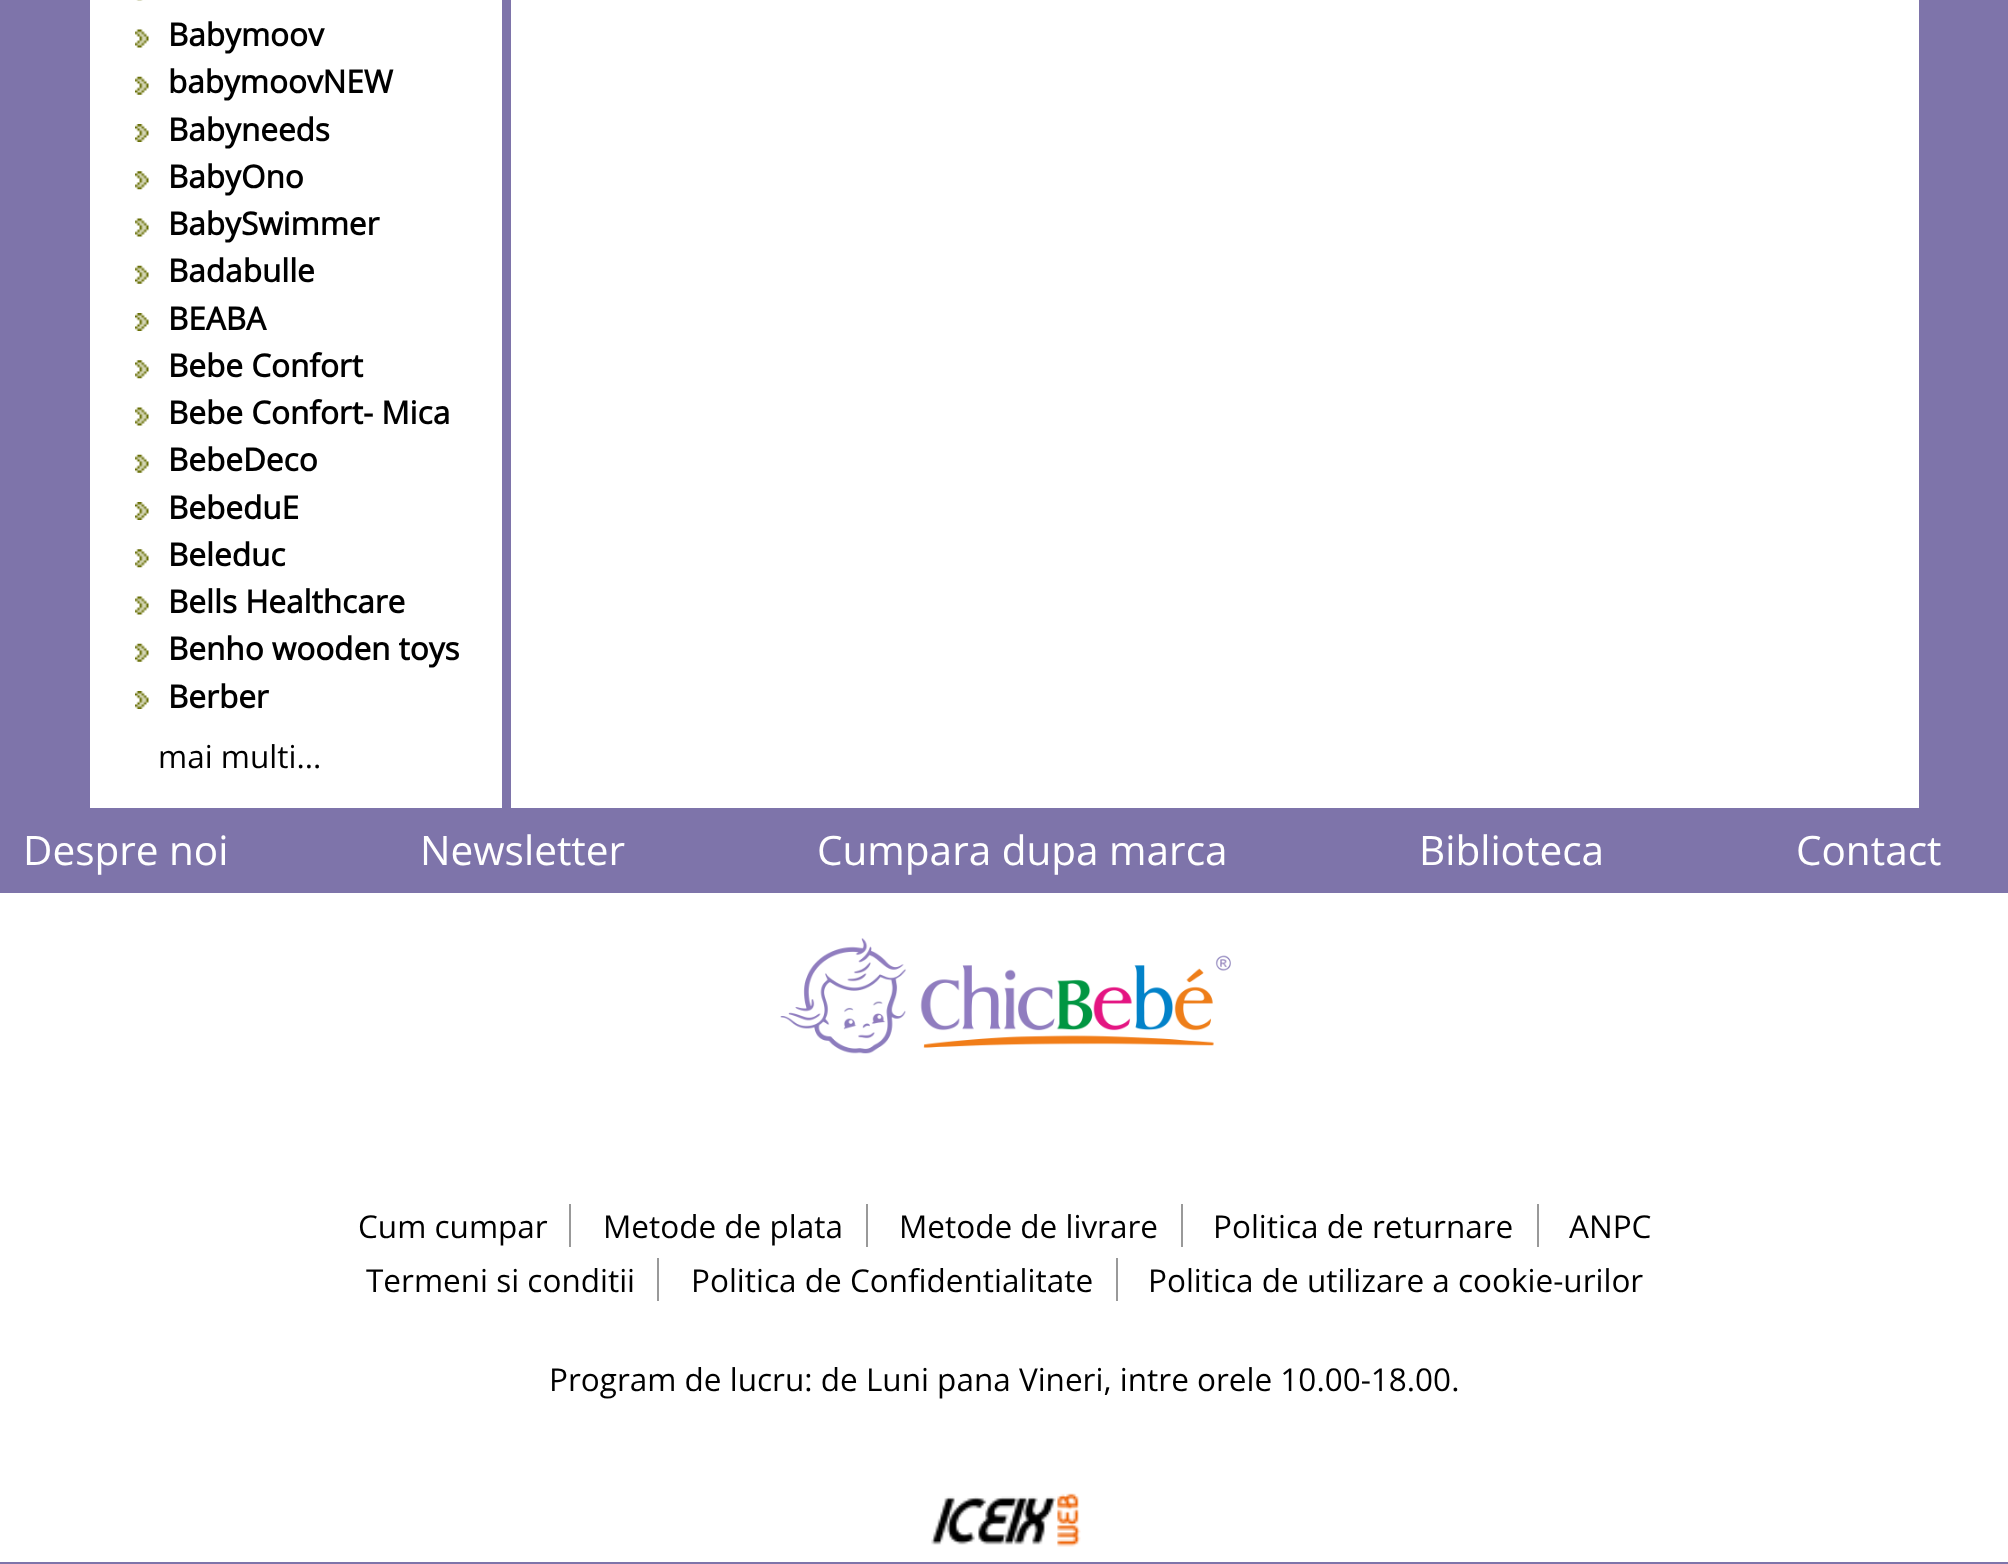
async function draw(canvas) {
	canvas.width = 2008;
	canvas.height = 1564;
	const c = canvas.getContext('2d');
	c.miterLimit = 4;
	c.fontKerning = 'normal';
	async function loadImage(src) {
		const img = new Image();
		img.src = src;
		await img.decode();
		return img;
	}

	c.fillStyle = '#7e74aa';
	c.fillRect(0, 0, 2008, 1564);
	c.fillStyle = '#fff';
	c.fillRect(90, 0, 1829, 808);
	c.fillStyle = '#7e74aa';
	c.fillRect(502, 0, 9, 808);
	c.drawImage(await loadImage('img1.png'), 136, 0, 7, 1);
	c.drawImage(await loadImage('img2.png'), 135, 29, 14, 19);
	c.font = 'bold 31.5px Open Sans';
	c.fillStyle = '#000';
	c.fillText('Babymoov', 168, 46);
	c.drawImage(await loadImage('img3.png'), 135, 76, 14, 19);
	c.fillText('babymoovNEW', 168, 93);
	c.drawImage(await loadImage('img4.png'), 135, 124, 14, 18);
	c.fillText('Babyneeds', 168, 141);
	c.drawImage(await loadImage('img5.png'), 135, 171, 14, 19);
	c.fillText('BabyOno', 168, 188);
	c.drawImage(await loadImage('img2.png'), 135, 218, 14, 19);
	c.fillText('BabySwimmer', 168, 235);
	c.drawImage(await loadImage('img3.png'), 135, 265, 14, 19);
	c.fillText('Badabulle', 168, 282);
	c.drawImage(await loadImage('img4.png'), 135, 313, 14, 18);
	c.fillText('BEABA', 168, 330);
	c.drawImage(await loadImage('img5.png'), 135, 360, 14, 19);
	c.fillText('Bebe Confort', 168, 377);
	c.drawImage(await loadImage('img2.png'), 135, 407, 14, 19);
	c.fillText('Bebe Confort- Mica', 168, 424);
	c.drawImage(await loadImage('img3.png'), 135, 454, 14, 19);
	c.fillText('BebeDeco', 168, 471);
	c.drawImage(await loadImage('img4.png'), 135, 502, 14, 18);
	c.fillText('BebeduE', 168, 519);
	c.drawImage(await loadImage('img5.png'), 135, 549, 14, 19);
	c.fillText('Beleduc', 168, 566);
	c.drawImage(await loadImage('img2.png'), 135, 596, 14, 19);
	c.fillText('Bells Healthcare', 168, 613);
	c.drawImage(await loadImage('img3.png'), 135, 643, 14, 19);
	c.fillText('Benho wooden toys', 168, 660);
	c.drawImage(await loadImage('img4.png'), 135, 691, 14, 18);
	c.fillText('Berber', 168, 708);
	c.font = '31.5px Open Sans';
	c.fillText('mai multi...', 158, 768);
	c.font = '40.5px Open Sans';
	c.fillStyle = '#fff';
	for (const [text, x, y] of [
		['Despre noi', 23, 865],
		['Newsletter', 420, 865],
		['Cumpara dupa marca', 817, 865],
		['Biblioteca', 1419, 865],
		['Contact', 1796, 865],
	]) {
		c.fillText(text, x, y);
	}
	c.fillRect(0, 893, 2008, 669);
	c.drawImage(await loadImage('img6.png'), 780, 938, 451, 116);
	c.font = '31.5px Open Sans';
	c.fillStyle = '#000';
	c.fillText('Cum cumpar', 358, 1238);
	c.fillStyle = '#999';
	c.fillRect(569, 1204, 2, 43);
	c.fillStyle = '#000';
	c.fillText('Metode de plata', 603, 1238);
	c.fillStyle = '#999';
	c.fillRect(866, 1204, 2, 43);
	c.fillStyle = '#000';
	c.fillText('Metode de livrare', 899, 1238);
	c.fillStyle = '#999';
	c.fillRect(1181, 1204, 2, 43);
	c.fillStyle = '#000';
	c.fillText('Politica de returnare', 1213, 1238);
	c.fillStyle = '#999';
	c.fillRect(1537, 1204, 2, 43);
	c.fillStyle = '#000';
	c.fillText('ANPC', 1569, 1238);
	c.fillText('Termeni si conditii', 366, 1292);
	c.fillStyle = '#999';
	c.fillRect(657, 1258, 2, 43);
	c.fillStyle = '#000';
	c.fillText('Politica de Confidentialitate', 691, 1292);
	c.fillStyle = '#999';
	c.fillRect(1116, 1258, 2, 43);
	c.fillStyle = '#000';
	c.fillText('Politica de utilizare a cookie-urilor', 1148, 1292);
	c.fillText('Program de lucru: de Luni pana Vineri, intre orele 10.00-18.00.', 549, 1391);
	c.drawImage(await loadImage('img7.png'), 931, 1493, 150, 54);
}

draw(document.querySelector('canvas'));
